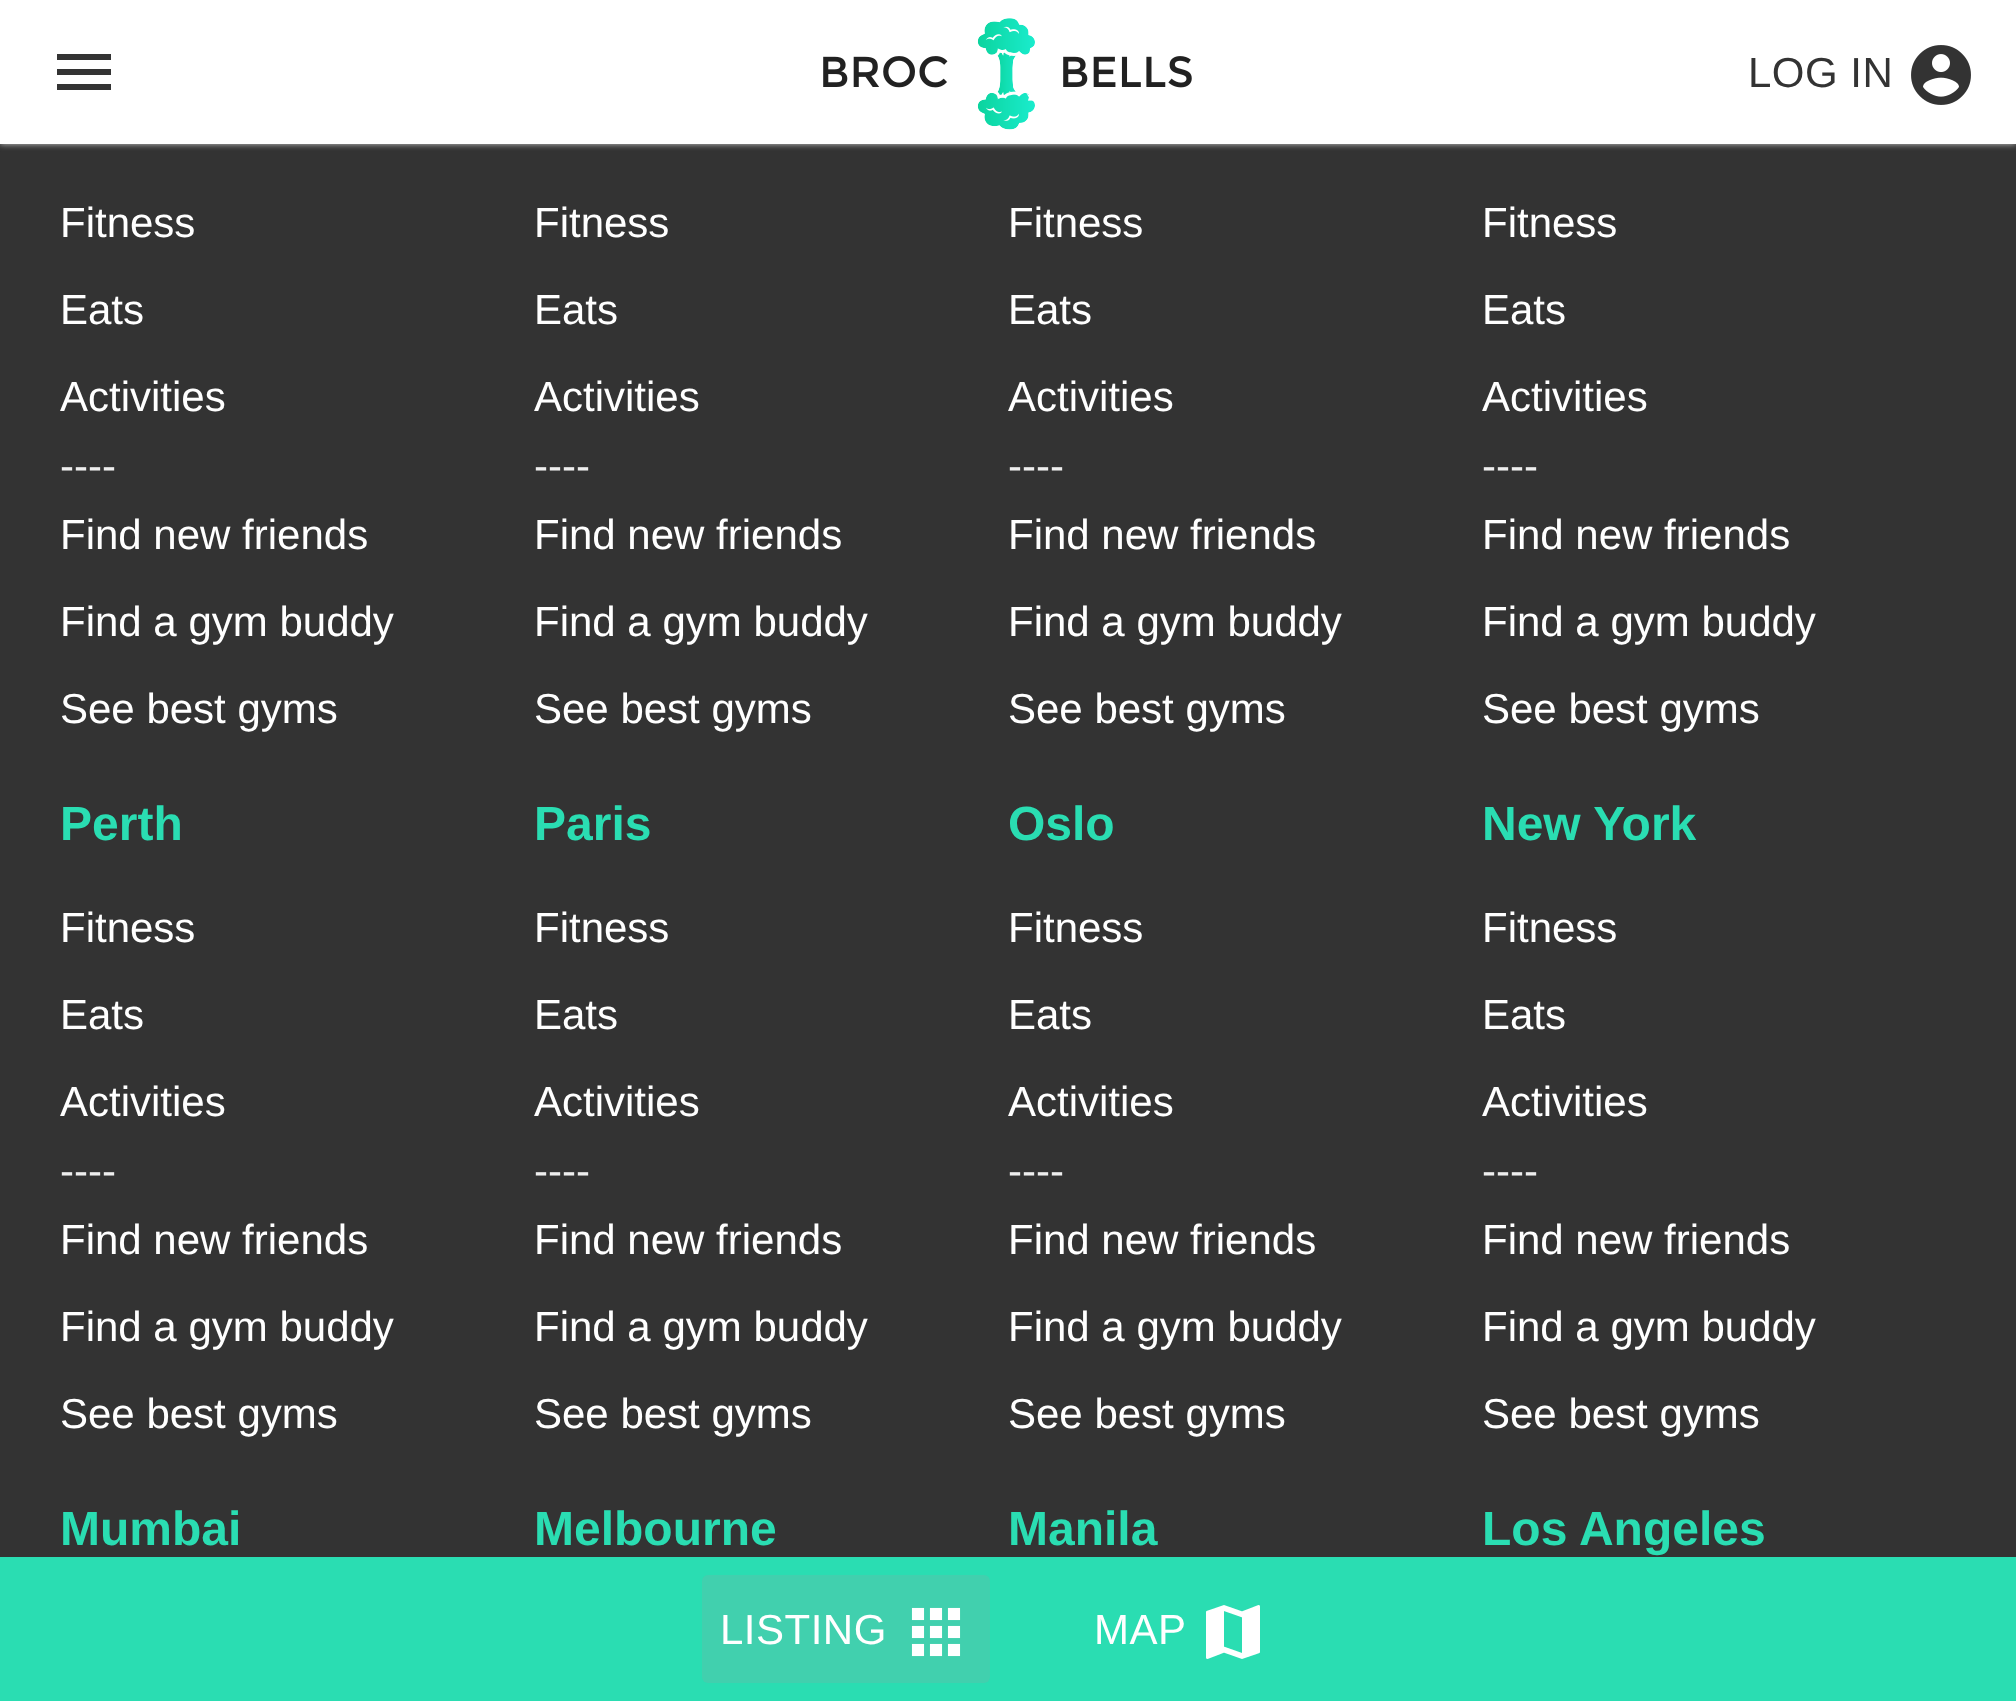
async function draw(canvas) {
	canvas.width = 2016;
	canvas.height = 1701;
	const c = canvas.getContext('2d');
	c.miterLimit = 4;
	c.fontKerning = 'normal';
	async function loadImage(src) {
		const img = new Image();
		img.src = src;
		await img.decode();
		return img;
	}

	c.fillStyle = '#333';
	c.fillRect(0, 0, 2016, 1701);
	c.fillStyle = '#ccc';
	c.filter = 'blur(3px)';
	c.beginPath();
	c.rect(0, 0, 2016, 144);
	c.fill();
	c.filter = 'none';
	c.fillStyle = '#fff';
	c.fillRect(0, 0, 2016, 144);
	c.fillStyle = '#333';
	c.beginPath();
	c.moveTo(57, 54);
	c.lineTo(111, 54);
	c.lineTo(111, 60);
	c.lineTo(57, 60);
	c.closePath();
	c.moveTo(57, 75);
	c.lineTo(57, 69);
	c.lineTo(111, 69);
	c.lineTo(111, 75);
	c.closePath();
	c.moveTo(57, 90);
	c.lineTo(57, 84);
	c.lineTo(111, 84);
	c.lineTo(111, 90);
	c.closePath();
	c.fill();
	c.drawImage(await loadImage('img1.png'), 823, 18, 369, 112);
	c.letterSpacing = '0.5px';
	c.font = '42px Liberation Sans';
	c.fillText('LOG IN', 1748, 87);
	c.drawImage(await loadImage('img2.png'), 1911, 45, 60, 60);
	c.letterSpacing = '0px';
	c.fillStyle = '#fff';
	for (const [text, x, y] of [
		['Fitness', 60, 237],
		['Eats', 60, 324],
		['Activities', 60, 411],
	]) {
		c.fillText(text, x, y);
	}
	c.fillStyle = '#eee';
	c.fillText('----', 60, 480);
	c.fillStyle = '#fff';
	for (const [text, x, y] of [
		['Find new friends', 60, 549],
		['Find a gym buddy', 60, 636],
		['See best gyms', 60, 723],
		['Fitness', 534, 237],
		['Eats', 534, 324],
		['Activities', 534, 411],
	]) {
		c.fillText(text, x, y);
	}
	c.fillStyle = '#eee';
	c.fillText('----', 534, 480);
	c.fillStyle = '#fff';
	for (const [text, x, y] of [
		['Find new friends', 534, 549],
		['Find a gym buddy', 534, 636],
		['See best gyms', 534, 723],
		['Fitness', 1008, 237],
		['Eats', 1008, 324],
		['Activities', 1008, 411],
	]) {
		c.fillText(text, x, y);
	}
	c.fillStyle = '#eee';
	c.fillText('----', 1008, 480);
	c.fillStyle = '#fff';
	for (const [text, x, y] of [
		['Find new friends', 1008, 549],
		['Find a gym buddy', 1008, 636],
		['See best gyms', 1008, 723],
		['Fitness', 1482, 237],
		['Eats', 1482, 324],
		['Activities', 1482, 411],
	]) {
		c.fillText(text, x, y);
	}
	c.fillStyle = '#eee';
	c.fillText('----', 1482, 480);
	c.fillStyle = '#fff';
	for (const [text, x, y] of [
		['Find new friends', 1482, 549],
		['Find a gym buddy', 1482, 636],
		['See best gyms', 1482, 723],
	]) {
		c.fillText(text, x, y);
	}
	c.font = 'bold 48px Liberation Sans';
	c.fillStyle = '#2addb2';
	c.fillText('Perth', 60, 840);
	c.font = '42px Liberation Sans';
	c.fillStyle = '#fff';
	for (const [text, x, y] of [
		['Fitness', 60, 942],
		['Eats', 60, 1029],
		['Activities', 60, 1116],
	]) {
		c.fillText(text, x, y);
	}
	c.fillStyle = '#eee';
	c.fillText('----', 60, 1185);
	c.fillStyle = '#fff';
	for (const [text, x, y] of [
		['Find new friends', 60, 1254],
		['Find a gym buddy', 60, 1341],
		['See best gyms', 60, 1428],
	]) {
		c.fillText(text, x, y);
	}
	c.font = 'bold 48px Liberation Sans';
	c.fillStyle = '#2addb2';
	c.fillText('Paris', 534, 840);
	c.font = '42px Liberation Sans';
	c.fillStyle = '#fff';
	for (const [text, x, y] of [
		['Fitness', 534, 942],
		['Eats', 534, 1029],
		['Activities', 534, 1116],
	]) {
		c.fillText(text, x, y);
	}
	c.fillStyle = '#eee';
	c.fillText('----', 534, 1185);
	c.fillStyle = '#fff';
	for (const [text, x, y] of [
		['Find new friends', 534, 1254],
		['Find a gym buddy', 534, 1341],
		['See best gyms', 534, 1428],
	]) {
		c.fillText(text, x, y);
	}
	c.font = 'bold 48px Liberation Sans';
	c.fillStyle = '#2addb2';
	c.fillText('Oslo', 1008, 840);
	c.font = '42px Liberation Sans';
	c.fillStyle = '#fff';
	for (const [text, x, y] of [
		['Fitness', 1008, 942],
		['Eats', 1008, 1029],
		['Activities', 1008, 1116],
	]) {
		c.fillText(text, x, y);
	}
	c.fillStyle = '#eee';
	c.fillText('----', 1008, 1185);
	c.fillStyle = '#fff';
	for (const [text, x, y] of [
		['Find new friends', 1008, 1254],
		['Find a gym buddy', 1008, 1341],
		['See best gyms', 1008, 1428],
	]) {
		c.fillText(text, x, y);
	}
	c.font = 'bold 48px Liberation Sans';
	c.fillStyle = '#2addb2';
	c.fillText('New York', 1482, 840);
	c.font = '42px Liberation Sans';
	c.fillStyle = '#fff';
	for (const [text, x, y] of [
		['Fitness', 1482, 942],
		['Eats', 1482, 1029],
		['Activities', 1482, 1116],
	]) {
		c.fillText(text, x, y);
	}
	c.fillStyle = '#eee';
	c.fillText('----', 1482, 1185);
	c.fillStyle = '#fff';
	for (const [text, x, y] of [
		['Find new friends', 1482, 1254],
		['Find a gym buddy', 1482, 1341],
		['See best gyms', 1482, 1428],
	]) {
		c.fillText(text, x, y);
	}
	c.font = 'bold 48px Liberation Sans';
	c.fillStyle = '#2addb2';
	for (const [text, x, y] of [
		['Mumbai', 60, 1545],
		['Melbourne', 534, 1545],
		['Manila', 1008, 1545],
		['Los Angeles', 1482, 1545],
	]) {
		c.fillText(text, x, y);
	}
	c.fillRect(0, 1557, 2016, 144);
	c.fillStyle = '#41d0ae';
	c.beginPath();
	c.roundRect(702, 1575, 288, 108, 6);
	c.fill();
	c.letterSpacing = '0.5px';
	c.font = '42px Liberation Sans';
	c.fillStyle = '#fff';
	c.fillText('LISTING', 720, 1644);
	c.drawImage(await loadImage('img3.png'), 911, 1607, 50, 50);
	c.fillText('MAP', 1094, 1644);
	c.drawImage(await loadImage('img4.png'), 1206, 1605, 54, 54);
}

draw(document.querySelector('canvas'));
